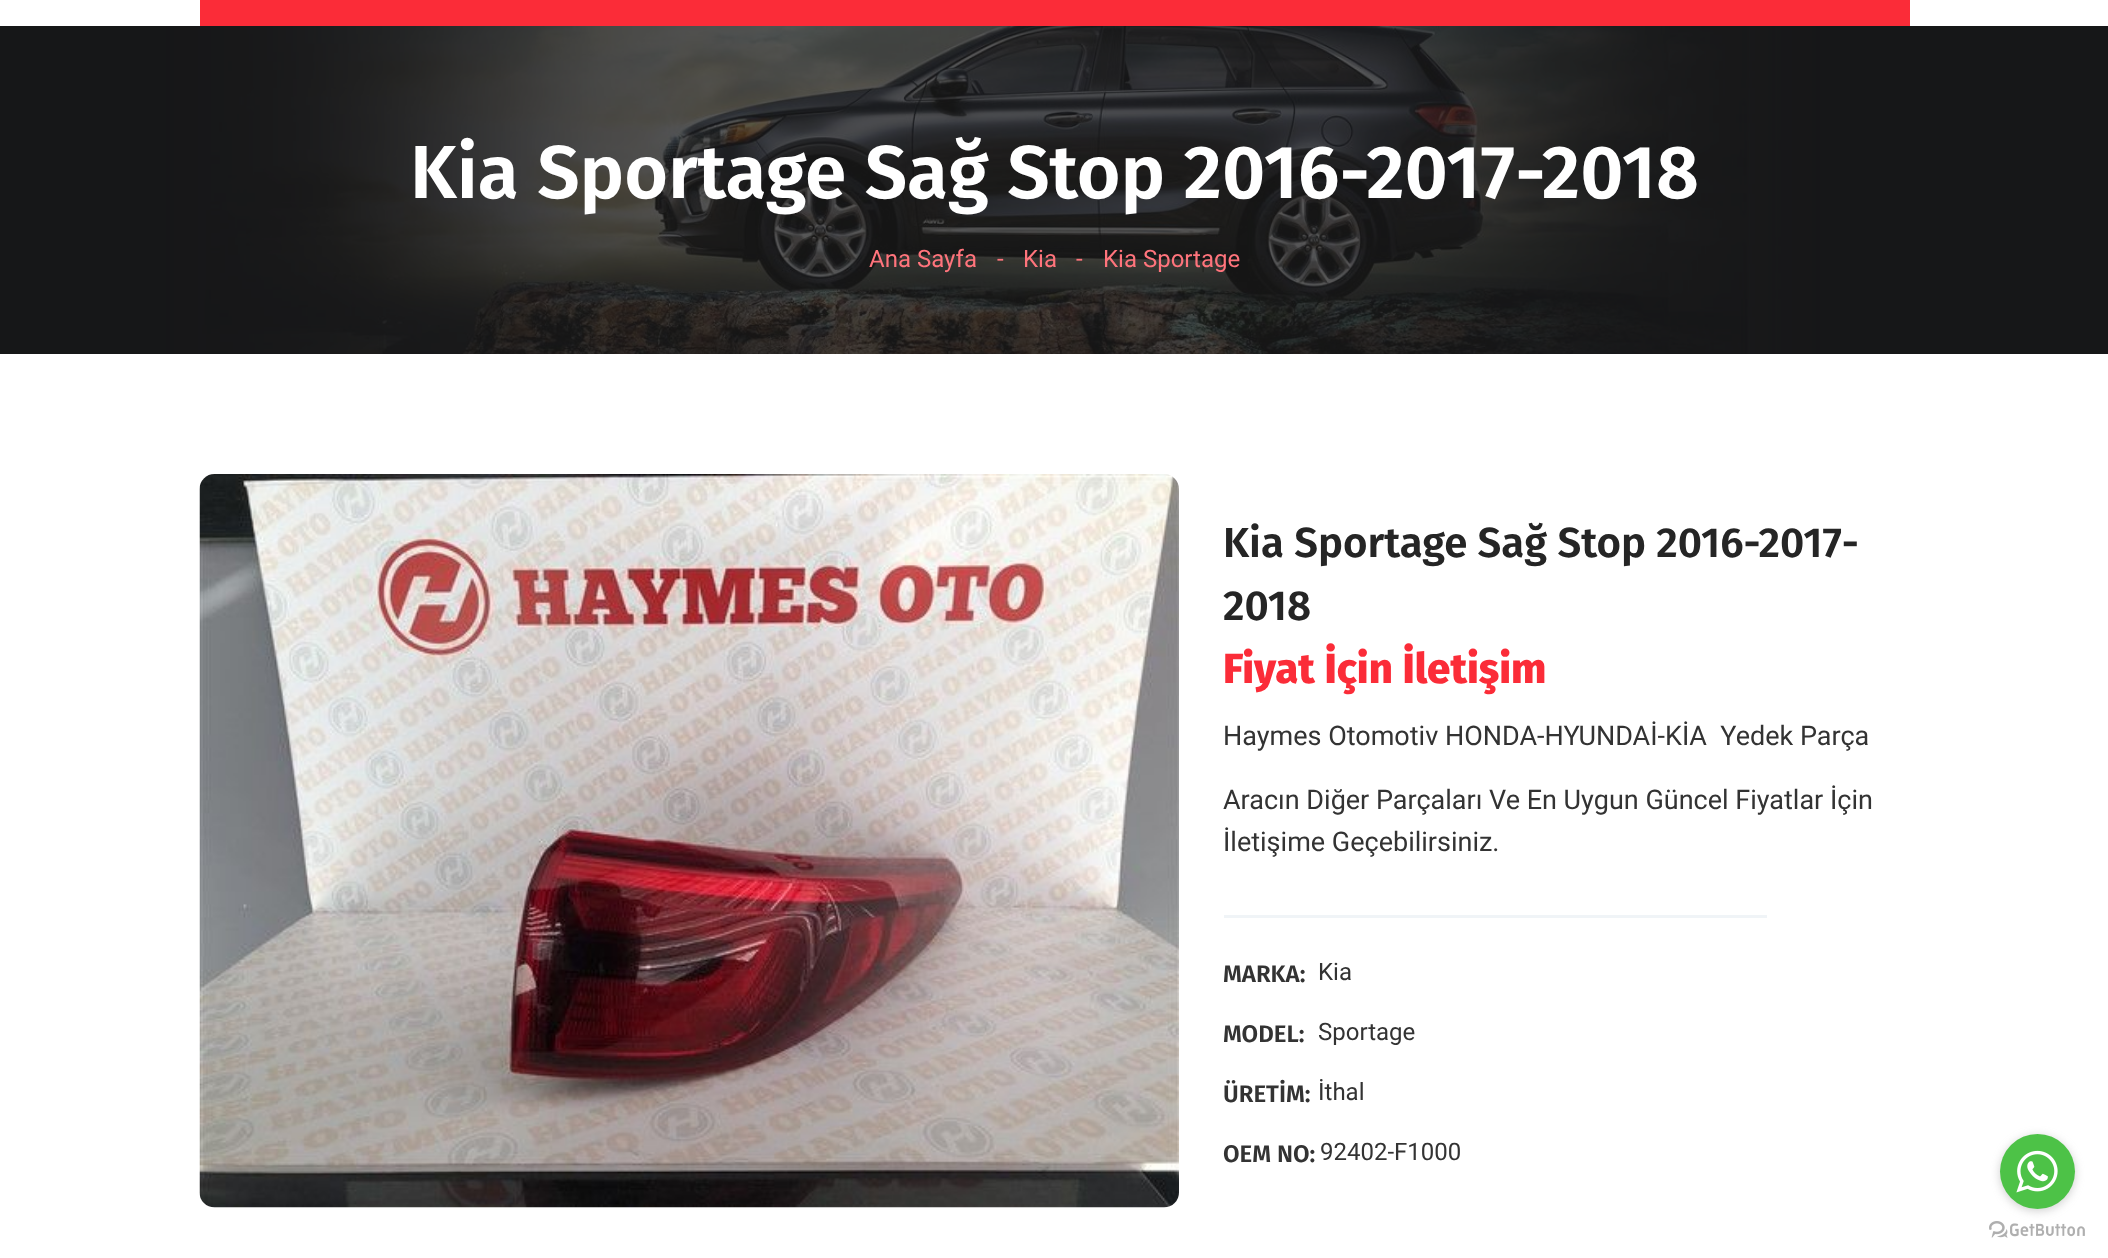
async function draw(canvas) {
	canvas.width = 2108;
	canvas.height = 1258;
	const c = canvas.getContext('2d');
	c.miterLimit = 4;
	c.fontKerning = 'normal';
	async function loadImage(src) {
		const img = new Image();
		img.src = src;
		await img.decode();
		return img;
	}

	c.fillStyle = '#fff';
	c.fillRect(0, 0, 2108, 1258);
	c.fillStyle = '#fb2c38';
	c.fillRect(200, 0, 1710, 26);
	c.drawImage(await loadImage('img1.png'), 0, 26, 2108, 328);
	c.font = '600 75px Fira Sans';
	c.fillStyle = '#fff';
	c.fillText('Kia Sportage Sağ Stop 2016-2017-2018', 410, 198);
	c.font = '24px Roboto';
	c.fillStyle = '#ff747c';
	for (const [text, x, y] of [
		['Ana Sayfa', 869, 267],
		['-', 997, 267],
		['Kia', 1023, 267],
		['-', 1076, 267],
		['Kia Sportage', 1103, 267],
	]) {
		c.fillText(text, x, y);
	}
	c.drawImage(await loadImage('img2.png'), 199, 474, 980, 734);
	c.font = '600 42px Fira Sans';
	c.fillStyle = '#252525';
	c.fillText('Kia Sportage Sağ Stop 2016-2017-', 1223, 557);
	c.fillText('2018', 1223, 620);
	c.font = '800 42px Fira Sans';
	c.fillStyle = '#fb2c38';
	c.fillText('Fiyat İçin İletişim', 1223, 683);
	c.font = '27px Roboto';
	c.fillStyle = '#333';
	for (const [text, x, y] of [
		['Haymes Otomotiv HONDA-HYUNDAİ-KİA  Yedek Parça', 1223, 745],
		['Aracın Diğer Parçaları Ve En Uygun Güncel Fiyatlar İçin', 1223, 809],
		['İletişime Geçebilirsiniz.', 1223, 851],
	]) {
		c.fillText(text, x, y);
	}
	c.fillStyle = '#f0f4f7';
	c.fillRect(1224, 915, 543, 3);
	c.font = '600 24px Fira Sans';
	c.fillStyle = '#333';
	c.fillText('MARKA:', 1223, 982);
	c.font = '24px Roboto';
	c.fillText('Kia', 1318, 980);
	c.font = '600 24px Fira Sans';
	c.fillText('MODEL:', 1223, 1042);
	c.font = '24px Roboto';
	c.fillText('Sportage', 1318, 1040);
	c.font = '600 24px Fira Sans';
	c.fillText('ÜRETİM:', 1223, 1102);
	c.font = '24px Roboto';
	c.fillText('İthal', 1318, 1100);
	c.font = '600 24px Fira Sans';
	c.fillText('OEM NO:', 1223, 1162);
	c.font = '24px Roboto';
	c.fillText('92402-F1000', 1320, 1160);
	c.drawImage(await loadImage('img4.png'), 1989, 1221, 96, 17);
	c.fillStyle = '#88888866';
	c.filter = 'blur(5px)';
	c.beginPath();
	c.roundRect(2000, 1136, 75, 75, 37.5);
	c.fill();
	c.filter = 'none';
	c.fillStyle = '#4dc247';
	c.beginPath();
	c.arc(2037.5, 1171.5, 37.5, 0, 2 * Math.PI);
	c.fill();
	c.drawImage(await loadImage('img3.png'), 2016, 1150, 42, 43);
}

draw(document.querySelector('canvas'));
